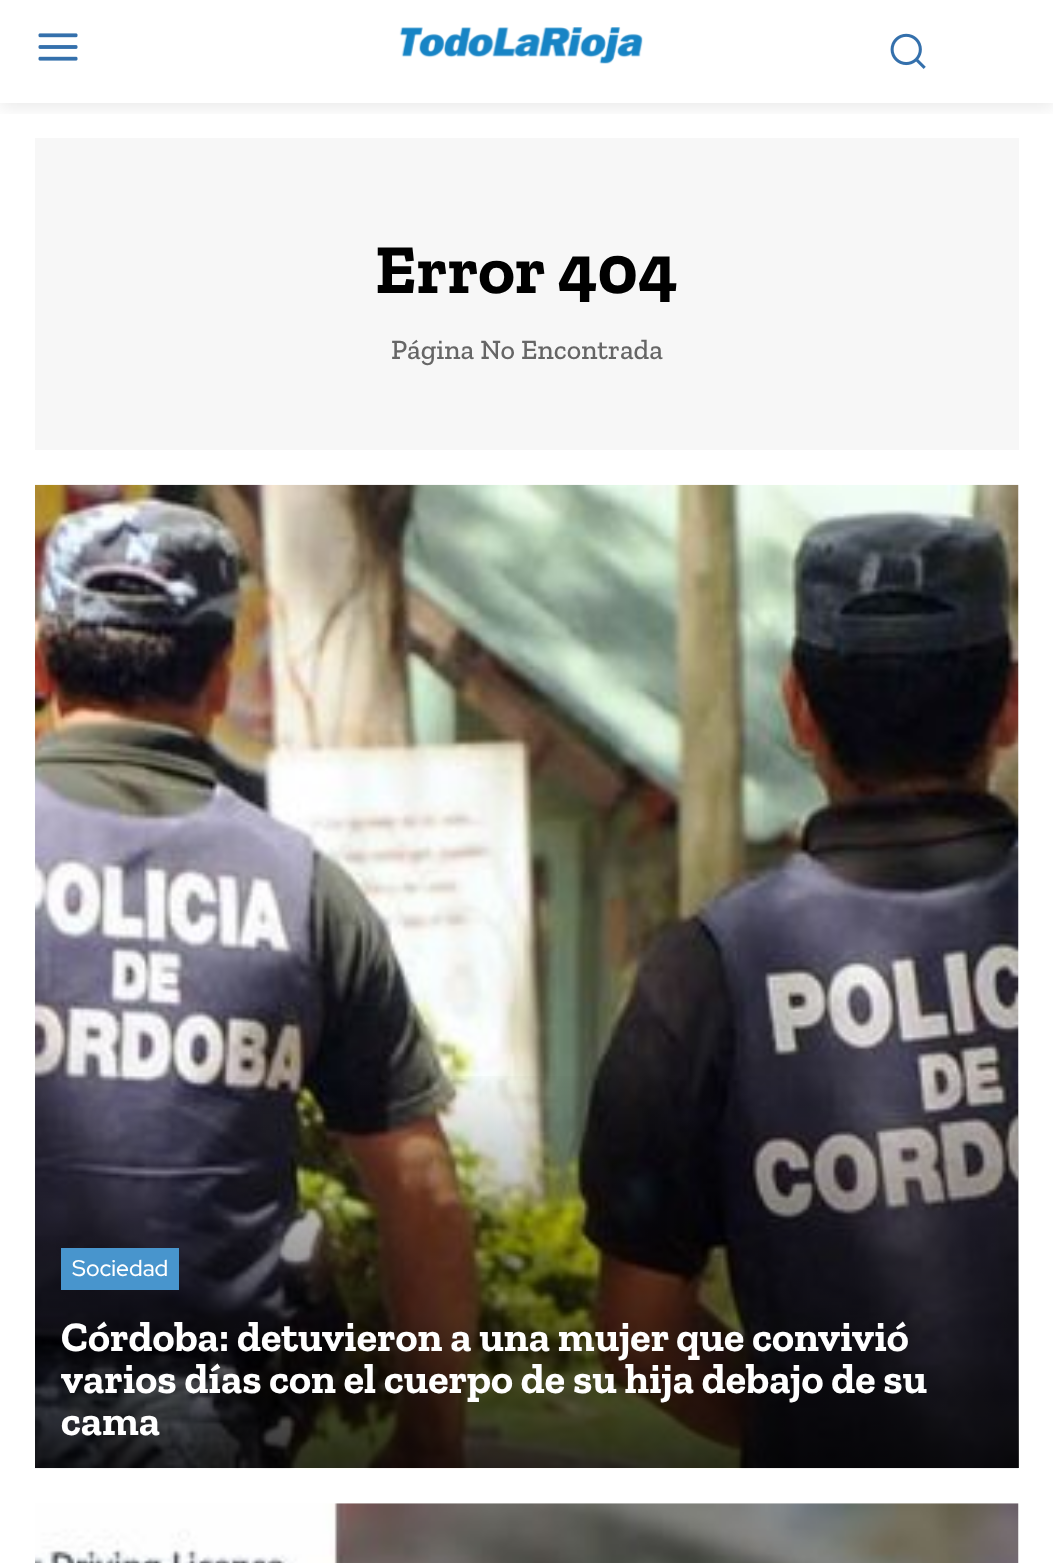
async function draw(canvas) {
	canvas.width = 1053;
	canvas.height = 1563;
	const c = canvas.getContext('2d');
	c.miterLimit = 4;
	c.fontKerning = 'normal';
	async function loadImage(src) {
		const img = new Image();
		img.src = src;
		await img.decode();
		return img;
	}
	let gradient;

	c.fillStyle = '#fff';
	c.fillRect(0, 0, 1053, 1563);
	c.drawImage(await loadImage('img1.png'), 38, 33, 40, 28);
	c.drawImage(await loadImage('img2.png'), 399, 27, 244, 37);
	c.drawImage(await loadImage('img3.png'), 890, 33, 36, 36);
	c.save();
	c.beginPath();
	c.rect(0, 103, 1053, 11);
	c.clip();
	c.fillStyle = '#00000017';
	c.filter = 'blur(9px)';
	c.beginPath();
	c.rect(0, 4, 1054, 103);
	c.fill();
	c.filter = 'none';
	c.restore();
	c.fillStyle = '#f7f7f7';
	c.fillRect(35, 138, 984, 312);
	c.font = 'bold 70px Zilla Slab';
	c.fillStyle = '#000';
	c.fillText('Error 404', 375, 293);
	c.font = '500 28px Zilla Slab';
	c.fillStyle = '#666';
	c.fillText('Página No Encontrada', 391, 359);
	c.drawImage(await loadImage('img4.png'), 35, 484, 984, 985);
	gradient = c.createLinearGradient(527, 1468, 527, 485);
	gradient.addColorStop(0, '#000000cc');
	gradient.addColorStop(0.41, '#00000000');
	gradient.addColorStop(1, '#00000000');
	c.fillStyle = gradient;
	c.fillRect(35, 1076, 984, 392);
	c.fillStyle = '#4895cd';
	c.fillRect(61, 1248, 118, 42);
	c.font = '500 22.75px Red Hat Display';
	c.fillStyle = '#fff';
	c.fillText('Sociedad', 72, 1276);
	c.font = 'bold 42px Zilla Slab';
	for (const [text, x, y] of [
		['Córdoba: detuvieron a una mujer que convivió', 61, 1351],
		['varios días con el cuerpo de su hija debajo de su', 61, 1393],
		['cama', 61, 1435],
	]) {
		c.fillText(text, x, y);
	}
	c.drawImage(await loadImage('img5.png'), 35, 1503, 984, 60);
}

draw(document.querySelector('canvas'));
